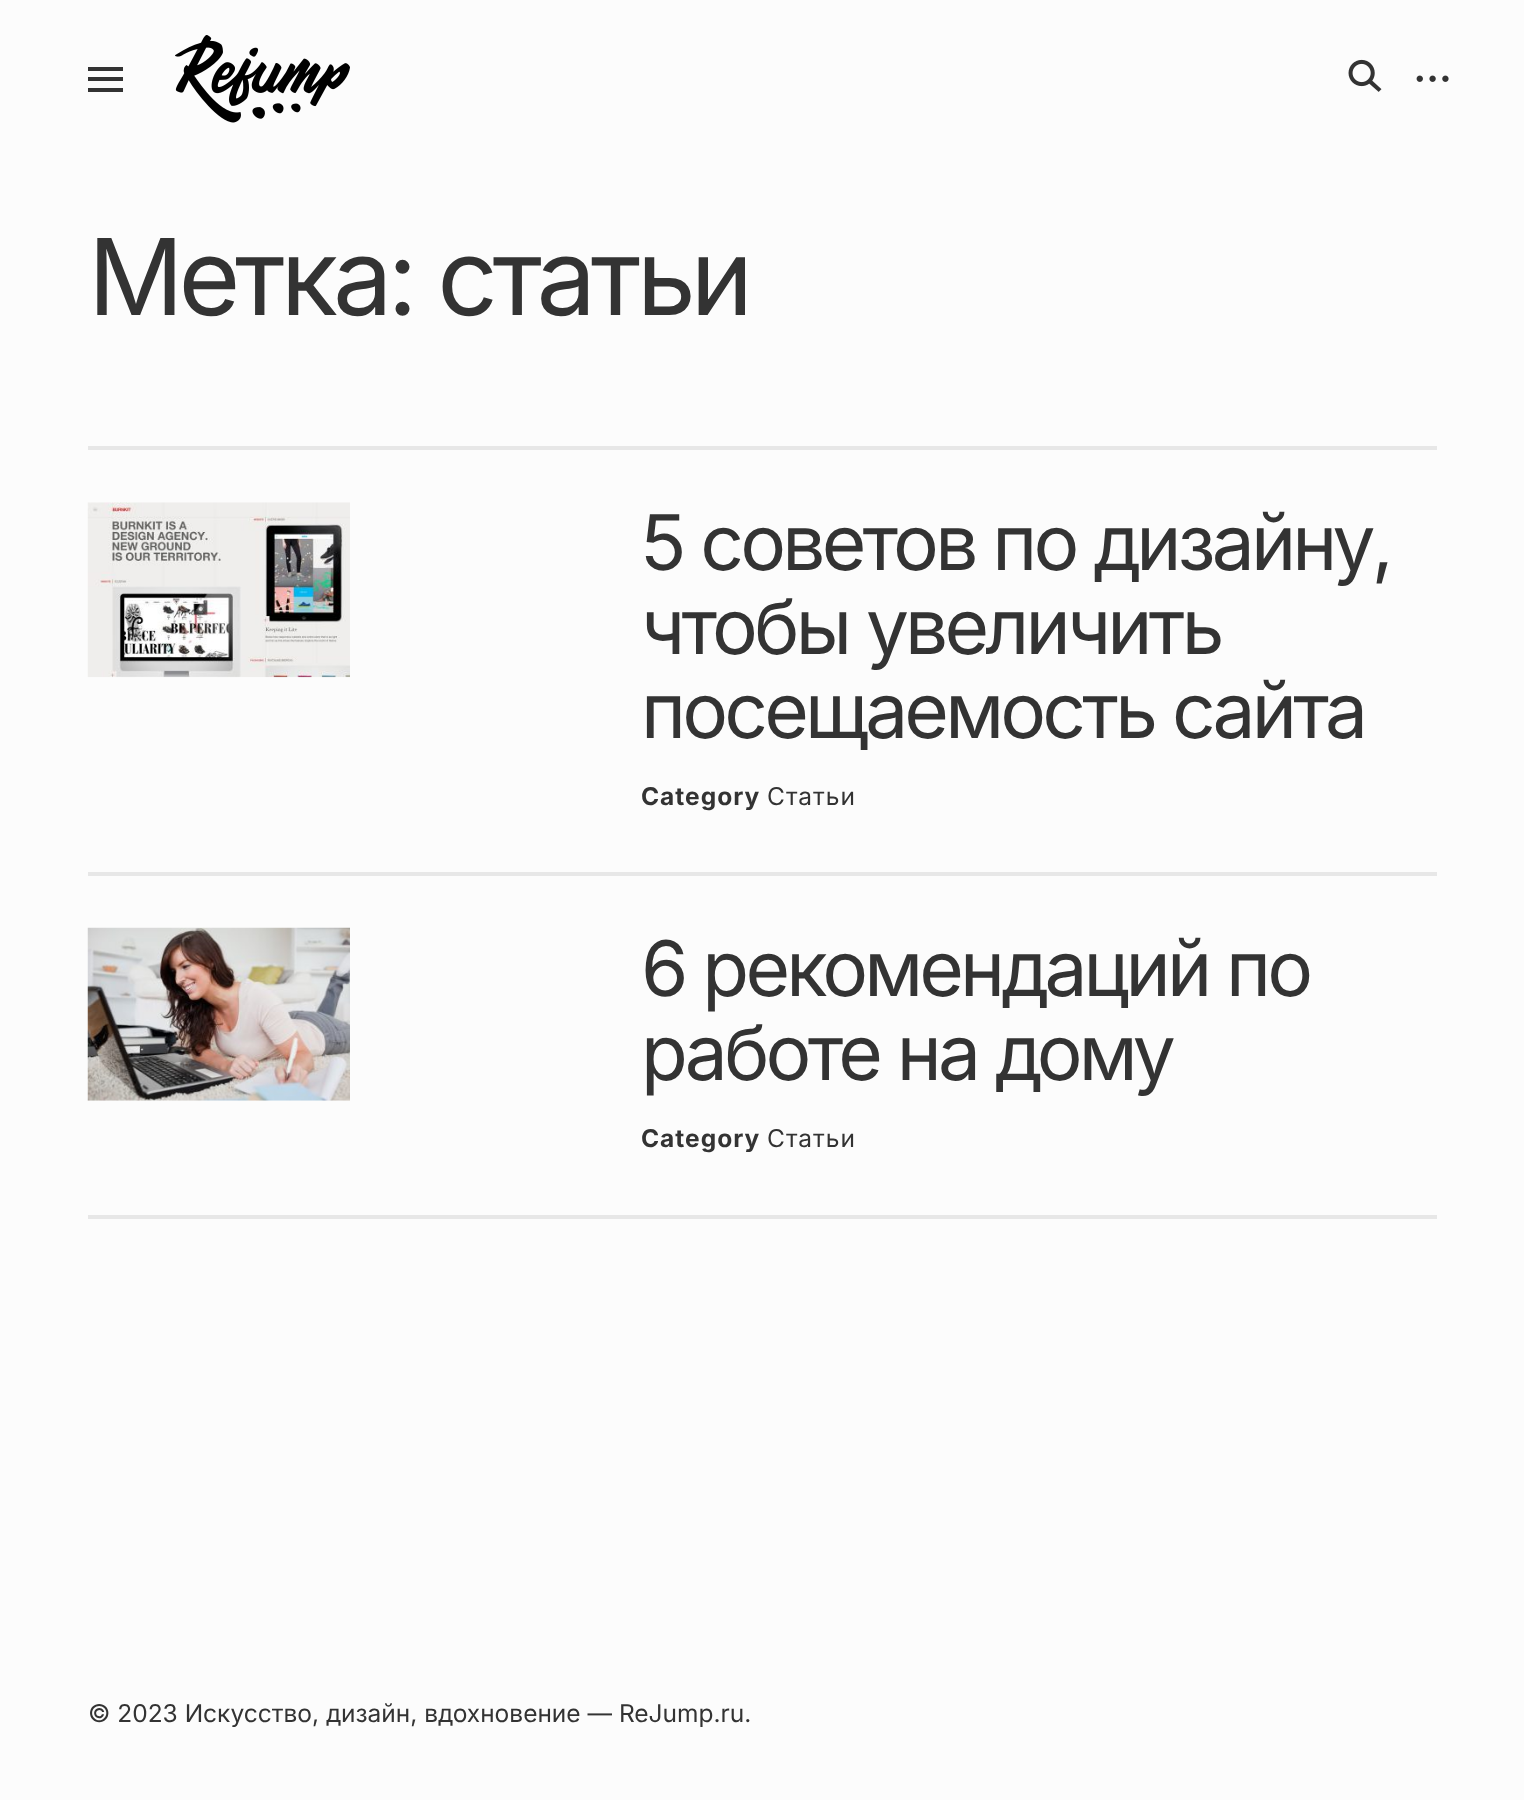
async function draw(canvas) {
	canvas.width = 1524;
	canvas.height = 1800;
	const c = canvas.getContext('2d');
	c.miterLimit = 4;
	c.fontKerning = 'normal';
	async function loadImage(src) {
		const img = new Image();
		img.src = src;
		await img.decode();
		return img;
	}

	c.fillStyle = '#fcfcfc';
	c.fillRect(0, 0, 1524, 1800);
	for (const [x, y, w, h, color] of [
		[88, 77, 35, 4, '#333'],
		[88, 67, 35, 4, '#333'],
		[88, 88, 35, 4, '#333'],
	]) {
		c.fillStyle = color;
		c.fillRect(x, y, w, h);
	}
	c.drawImage(await loadImage('img1.png'), 175, 35, 175, 88);
	c.drawImage(await loadImage('img2.png'), 1348, 59, 34, 33);
	c.drawImage(await loadImage('img3.png'), 1416, 75, 33, 7);
	c.letterSpacing = '-5.25px';
	c.font = '106px Inter';
	c.fillText('Метка: статьи', 88, 315);
	c.fillStyle = '#e7e7e7';
	c.fillRect(88, 446, 1349, 4);
	c.fillRect(88, 872, 1349, 4);
	c.drawImage(await loadImage('img4.png'), 87, 502, 263, 176);
	c.letterSpacing = '-3.8px';
	c.font = '76.5px Inter';
	c.fillStyle = '#333';
	for (const [text, x, y] of [
		['5 советов по дизайну,', 641, 570],
		['чтобы увеличить', 641, 654],
		['посещаемость сайта', 641, 738],
	]) {
		c.fillText(text, x, y);
	}
	c.letterSpacing = '1px';
	c.font = 'bold 24.5px Inter';
	c.fillText('Category', 641, 805);
	c.font = '24.5px Inter';
	c.fillText('Статьи', 767, 805);
	c.fillStyle = '#e7e7e7';
	c.fillRect(88, 1215, 1349, 4);
	c.drawImage(await loadImage('img5.png'), 87, 927, 263, 174);
	c.letterSpacing = '-3.8px';
	c.font = '76.5px Inter';
	c.fillStyle = '#333';
	c.fillText('6 рекомендаций по', 641, 996);
	c.fillText('работе на дому', 641, 1080);
	c.letterSpacing = '1px';
	c.font = 'bold 24.5px Inter';
	c.fillText('Category', 641, 1147);
	c.font = '24.5px Inter';
	c.fillText('Статьи', 767, 1147);
	c.letterSpacing = '0px';
	c.fillText('© 2023 Искусство, дизайн, вдохновение — ReJump.ru.', 88, 1722);
}

draw(document.querySelector('canvas'));
